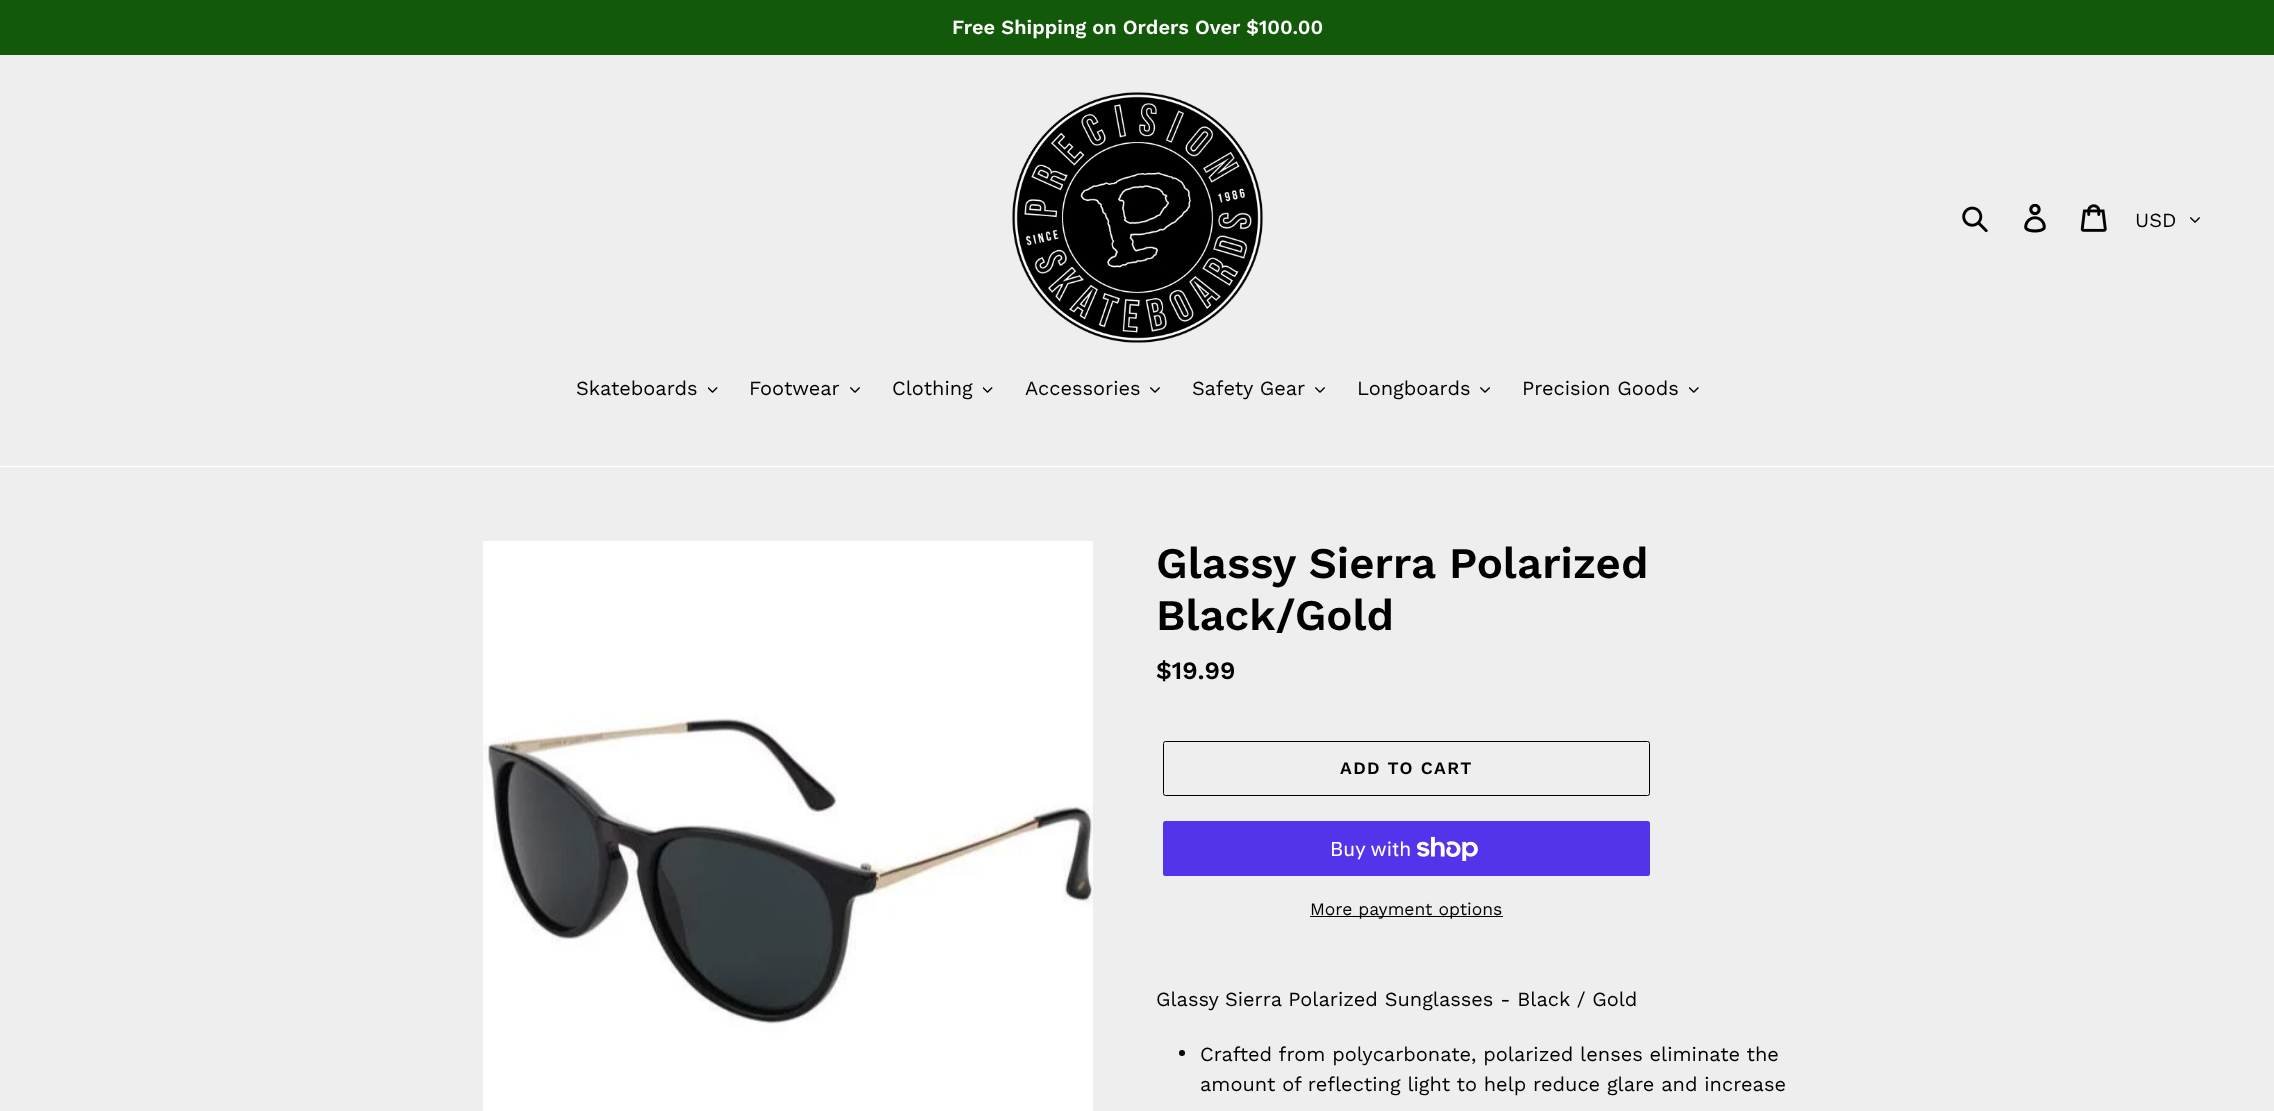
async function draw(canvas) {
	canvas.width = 2274;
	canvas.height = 1111;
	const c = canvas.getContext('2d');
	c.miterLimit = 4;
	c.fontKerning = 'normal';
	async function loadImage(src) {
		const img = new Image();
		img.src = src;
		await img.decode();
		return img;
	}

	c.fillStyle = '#efeeee';
	c.fillRect(0, 0, 2274, 1111);
	c.fillStyle = '#12590a';
	c.fillRect(0, 0, 2274, 55);
	c.font = '600 20px Work Sans';
	c.fillStyle = '#fff';
	c.fillText('Free Shipping on Orders Over $100.00', 952, 34);
	c.drawImage(await loadImage('img1.png'), 1012, 92, 251, 251);
	c.drawImage(await loadImage('img2.png'), 1962, 206, 26, 27);
	c.drawImage(await loadImage('img3.png'), 2024, 204, 22, 29);
	c.drawImage(await loadImage('img4.png'), 2080, 204, 27, 28);
	c.font = '20px Work Sans';
	c.fillStyle = '#000';
	c.fillText('USD', 2135, 227);
	c.drawImage(await loadImage('img5.png'), 2190, 217, 10, 6);
	c.fillStyle = '#fff';
	c.fillRect(0, 466, 2274, 1);
	c.fillStyle = '#000';
	c.fillText('Skateboards', 576, 395);
	c.drawImage(await loadImage('img6.png'), 708, 387, 10, 6);
	c.fillText('Footwear', 749, 395);
	c.drawImage(await loadImage('img5.png'), 850, 387, 10, 6);
	c.fillText('Clothing', 892, 395);
	c.drawImage(await loadImage('img6.png'), 983, 387, 10, 6);
	c.fillText('Accessories', 1025, 395);
	c.drawImage(await loadImage('img5.png'), 1150, 387, 10, 6);
	c.fillText('Safety Gear', 1192, 395);
	c.drawImage(await loadImage('img5.png'), 1315, 387, 10, 6);
	c.fillText('Longboards', 1357, 395);
	c.drawImage(await loadImage('img5.png'), 1480, 387, 10, 6);
	c.fillText('Precision Goods', 1522, 395);
	c.drawImage(await loadImage('img7.png'), 1689, 387, 10, 6);
	c.drawImage(await loadImage('img8.png'), 483, 541, 610, 570);
	c.font = '600 43.75px Work Sans';
	c.fillText('Glassy Sierra Polarized', 1156, 578);
	c.fillText('Black/Gold', 1156, 630);
	c.font = '600 25px Work Sans';
	c.fillText('$19.99', 1156, 679);
	c.beginPath();
	c.roundRect(1163.5, 741.5, 486, 54, 2);
	c.strokeStyle = '#000';
	c.stroke();
	c.letterSpacing = '1.4px';
	c.font = '600 17.5px Work Sans';
	c.fillText('ADD TO CART', 1340, 774);
	c.fillStyle = '#5433eb';
	c.beginPath();
	c.roundRect(1163, 821, 487, 55, 2.5);
	c.fill();
	c.letterSpacing = '0px';
	c.font = '20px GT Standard';
	c.fillStyle = '#fff';
	c.fillText('Buy with', 1330, 856);
	c.drawImage(await loadImage('img9.png'), 1416, 836, 62, 25);
	c.fillStyle = '#000';
	c.fillRect(1310, 916, 193, 1);
	c.font = '17.5px Work Sans';
	c.fillText('More payment options', 1310, 915);
	c.font = '20px Work Sans';
	c.fillText('Glassy Sierra Polarized Sunglasses - Black / Gold', 1156, 1006);
	c.beginPath();
	c.arc(1182, 1053, 3, 0, 2 * Math.PI);
	c.fill();
	c.fillText('Crafted from polycarbonate, polarized lenses eliminate the', 1200, 1061);
	c.fillText('amount of reflecting light to help reduce glare and increase', 1200, 1091);
}

draw(document.querySelector('canvas'));
